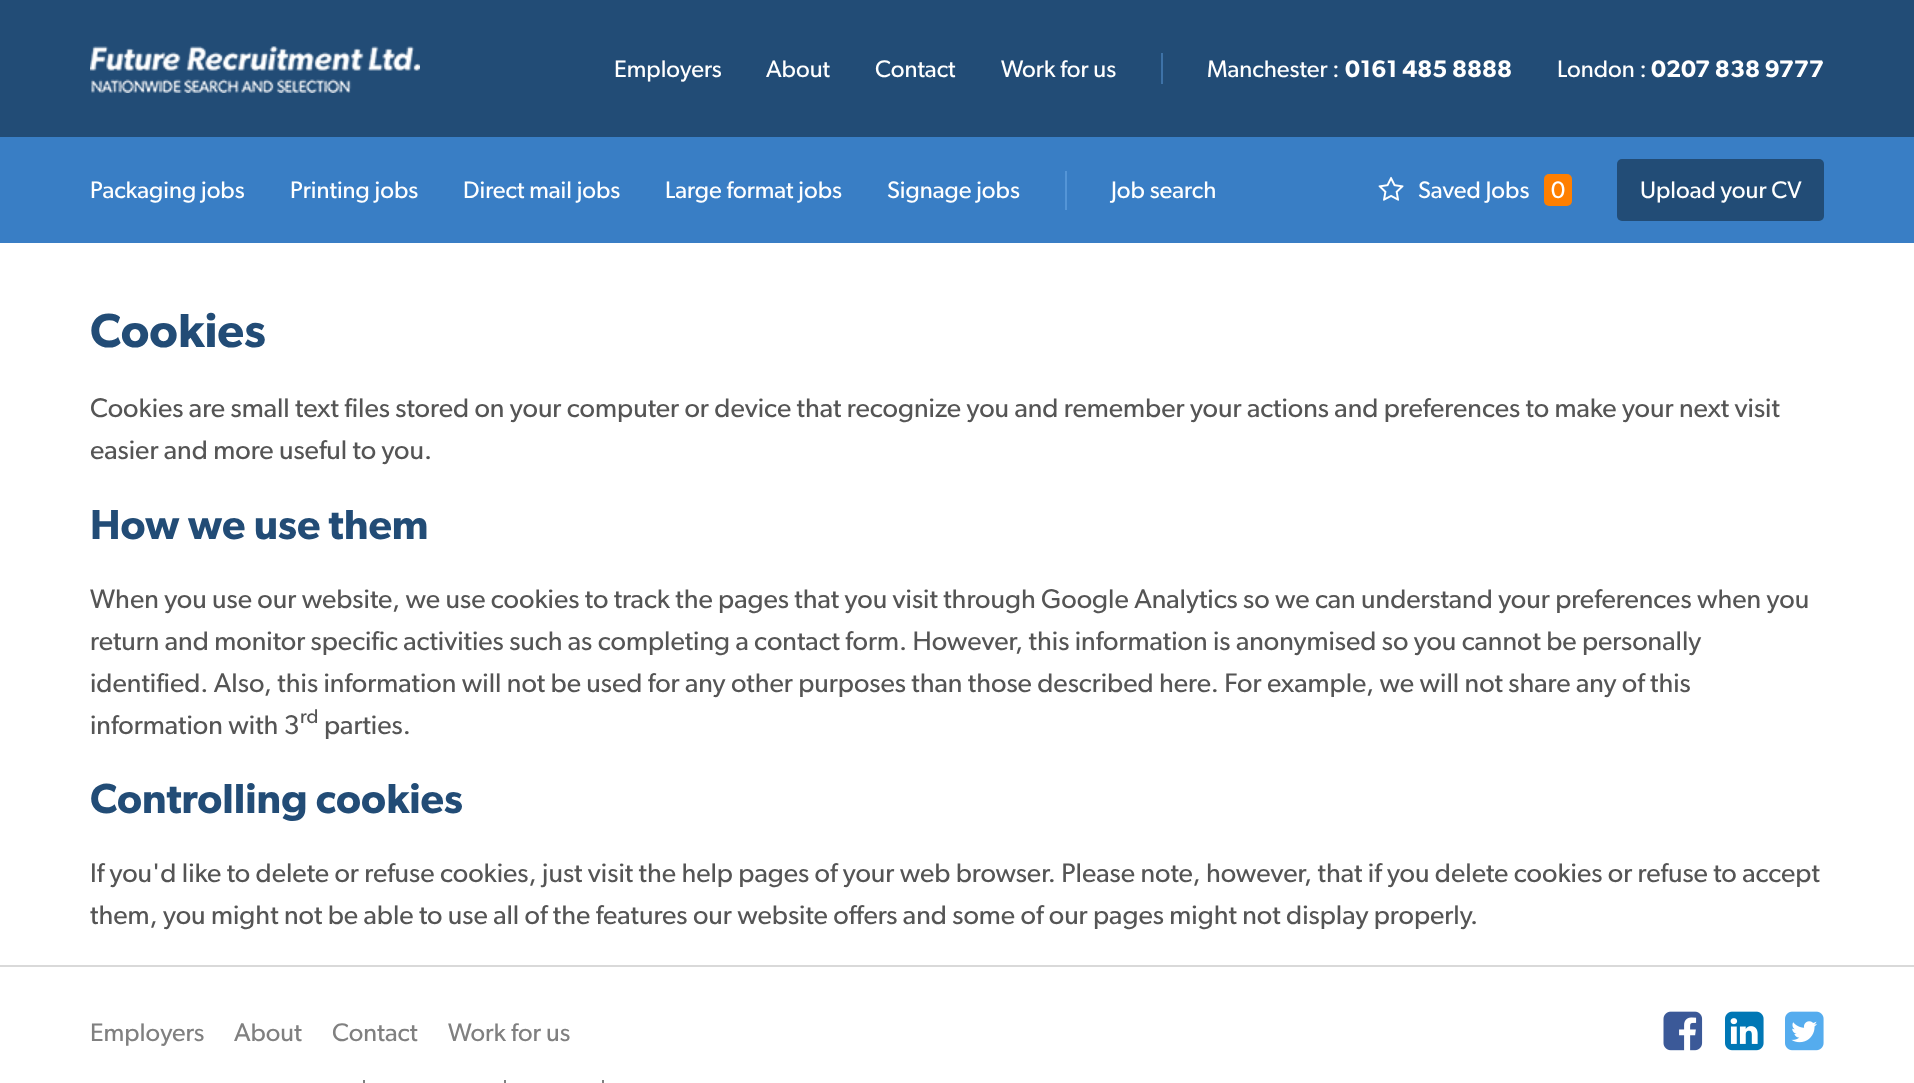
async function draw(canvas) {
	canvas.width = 1914;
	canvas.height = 1083;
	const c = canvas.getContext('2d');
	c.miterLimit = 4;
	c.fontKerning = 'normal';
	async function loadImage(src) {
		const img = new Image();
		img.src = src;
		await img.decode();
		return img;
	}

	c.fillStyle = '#fff';
	c.fillRect(0, 0, 1914, 1083);
	c.fillStyle = '#397ec5';
	c.fillRect(0, 137, 1914, 106);
	c.fillStyle = '#224c76';
	c.fillRect(0, 0, 1914, 137);
	c.drawImage(await loadImage('img1.png'), 90, 46, 330, 47);
	c.font = '24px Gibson';
	c.fillStyle = '#fff';
	for (const [text, x, y] of [
		['Employers', 614, 77],
		['About', 766, 77],
		['Contact', 875, 77],
		['Work for us', 1001, 77],
	]) {
		c.fillText(text, x, y);
	}
	c.fillStyle = '#3e72a7';
	c.fillRect(1161, 53, 2, 31);
	c.fillStyle = '#fff';
	c.fillText('Manchester :', 1207, 77);
	c.font = '600 24px Gibson';
	c.fillText('0161 485 8888', 1345, 77);
	c.font = '24px Gibson';
	c.fillText('London :', 1557, 77);
	c.font = '600 24px Gibson';
	c.fillText('0207 838 9777', 1651, 77);
	c.font = '24px Gibson';
	for (const [text, x, y] of [
		['Packaging jobs', 90, 198],
		['Printing jobs', 290, 198],
		['Direct mail jobs', 463, 198],
		['Large format jobs', 665, 198],
		['Signage jobs', 887, 198],
	]) {
		c.fillText(text, x, y);
	}
	c.fillStyle = '#5495d7';
	c.fillRect(1065, 171, 2, 39);
	c.fillStyle = '#fff';
	c.fillText('Job search', 1111, 198);
	c.drawImage(await loadImage('img2.png'), 1378, 176, 26, 25);
	c.fillText('Saved Jobs', 1418, 198);
	c.fillStyle = '#ff7f00';
	c.beginPath();
	c.roundRect(1544, 174, 28, 32, 5);
	c.fill();
	c.fillStyle = '#fff';
	c.fillText('0', 1551, 198);
	c.fillStyle = '#224c76';
	c.beginPath();
	c.roundRect(1617, 159, 207, 62, 5);
	c.fill();
	c.fillStyle = '#fff';
	c.fillText('Upload your CV', 1640, 198);
	c.font = '600 48px Gibson';
	c.fillStyle = '#224c76';
	c.fillText('Cookies', 90, 347);
	c.font = '27px Gibson';
	c.fillStyle = '#555';
	c.fillText('Cookies are small text files stored on your computer or device that recognize you and remember your actions and preferences to make your next visit', 90, 417);
	c.fillText('easier and more useful to you.', 90, 459);
	c.font = '600 42px Gibson';
	c.fillStyle = '#224c76';
	c.fillText('How we use them', 90, 539);
	c.font = '27px Gibson';
	c.fillStyle = '#555';
	for (const [text, x, y] of [
		['When you use our website, we use cookies to track the pages that you visit through Google Analytics so we can understand your preferences when you', 90, 608],
		['return and monitor specific activities such as completing a contact form. However, this information is anonymised so you cannot be personally', 90, 650],
		['identified. Also, this information will not be used for any other purposes than those described here. For example, we will not share any of this', 90, 692],
		['information with 3', 90, 734],
	]) {
		c.fillText(text, x, y);
	}
	c.font = '20px Gibson';
	c.fillText('rd', 300, 723);
	c.font = '27px Gibson';
	c.fillText('parties.', 324, 734);
	c.font = '600 42px Gibson';
	c.fillStyle = '#224c76';
	c.fillText('Controlling cookies', 90, 813);
	c.font = '27px Gibson';
	c.fillStyle = '#555';
	c.fillText('If you\'d like to delete or refuse cookies, just visit the help pages of your web browser. Please note, however, that if you delete cookies or refuse to accept', 90, 882);
	c.fillText('them, you might not be able to use all of the features our website offers and some of our pages might not display properly.', 90, 924);
	c.fillStyle = '#d9d9d9';
	c.fillRect(0, 965, 1914, 2);
	c.font = '25.5px Gibson';
	c.fillStyle = '#808080';
	for (const [text, x, y] of [
		['Employers', 90, 1041],
		['About', 234, 1041],
		['Contact', 332, 1041],
		['Work for us', 448, 1041],
	]) {
		c.fillText(text, x, y);
	}
	for (const [x, y, w, h, color] of [
		[363, 1080, 2, 3, '#808080'],
		[504, 1080, 2, 3, '#808080'],
		[602, 1080, 2, 3, '#808080'],
	]) {
		c.fillStyle = color;
		c.fillRect(x, y, w, h);
	}
	c.drawImage(await loadImage('img3.png'), 1663, 1011, 40, 40);
	c.drawImage(await loadImage('img4.png'), 1725, 1011, 39, 40);
	c.drawImage(await loadImage('img5.png'), 1785, 1011, 39, 40);
}

draw(document.querySelector('canvas'));
